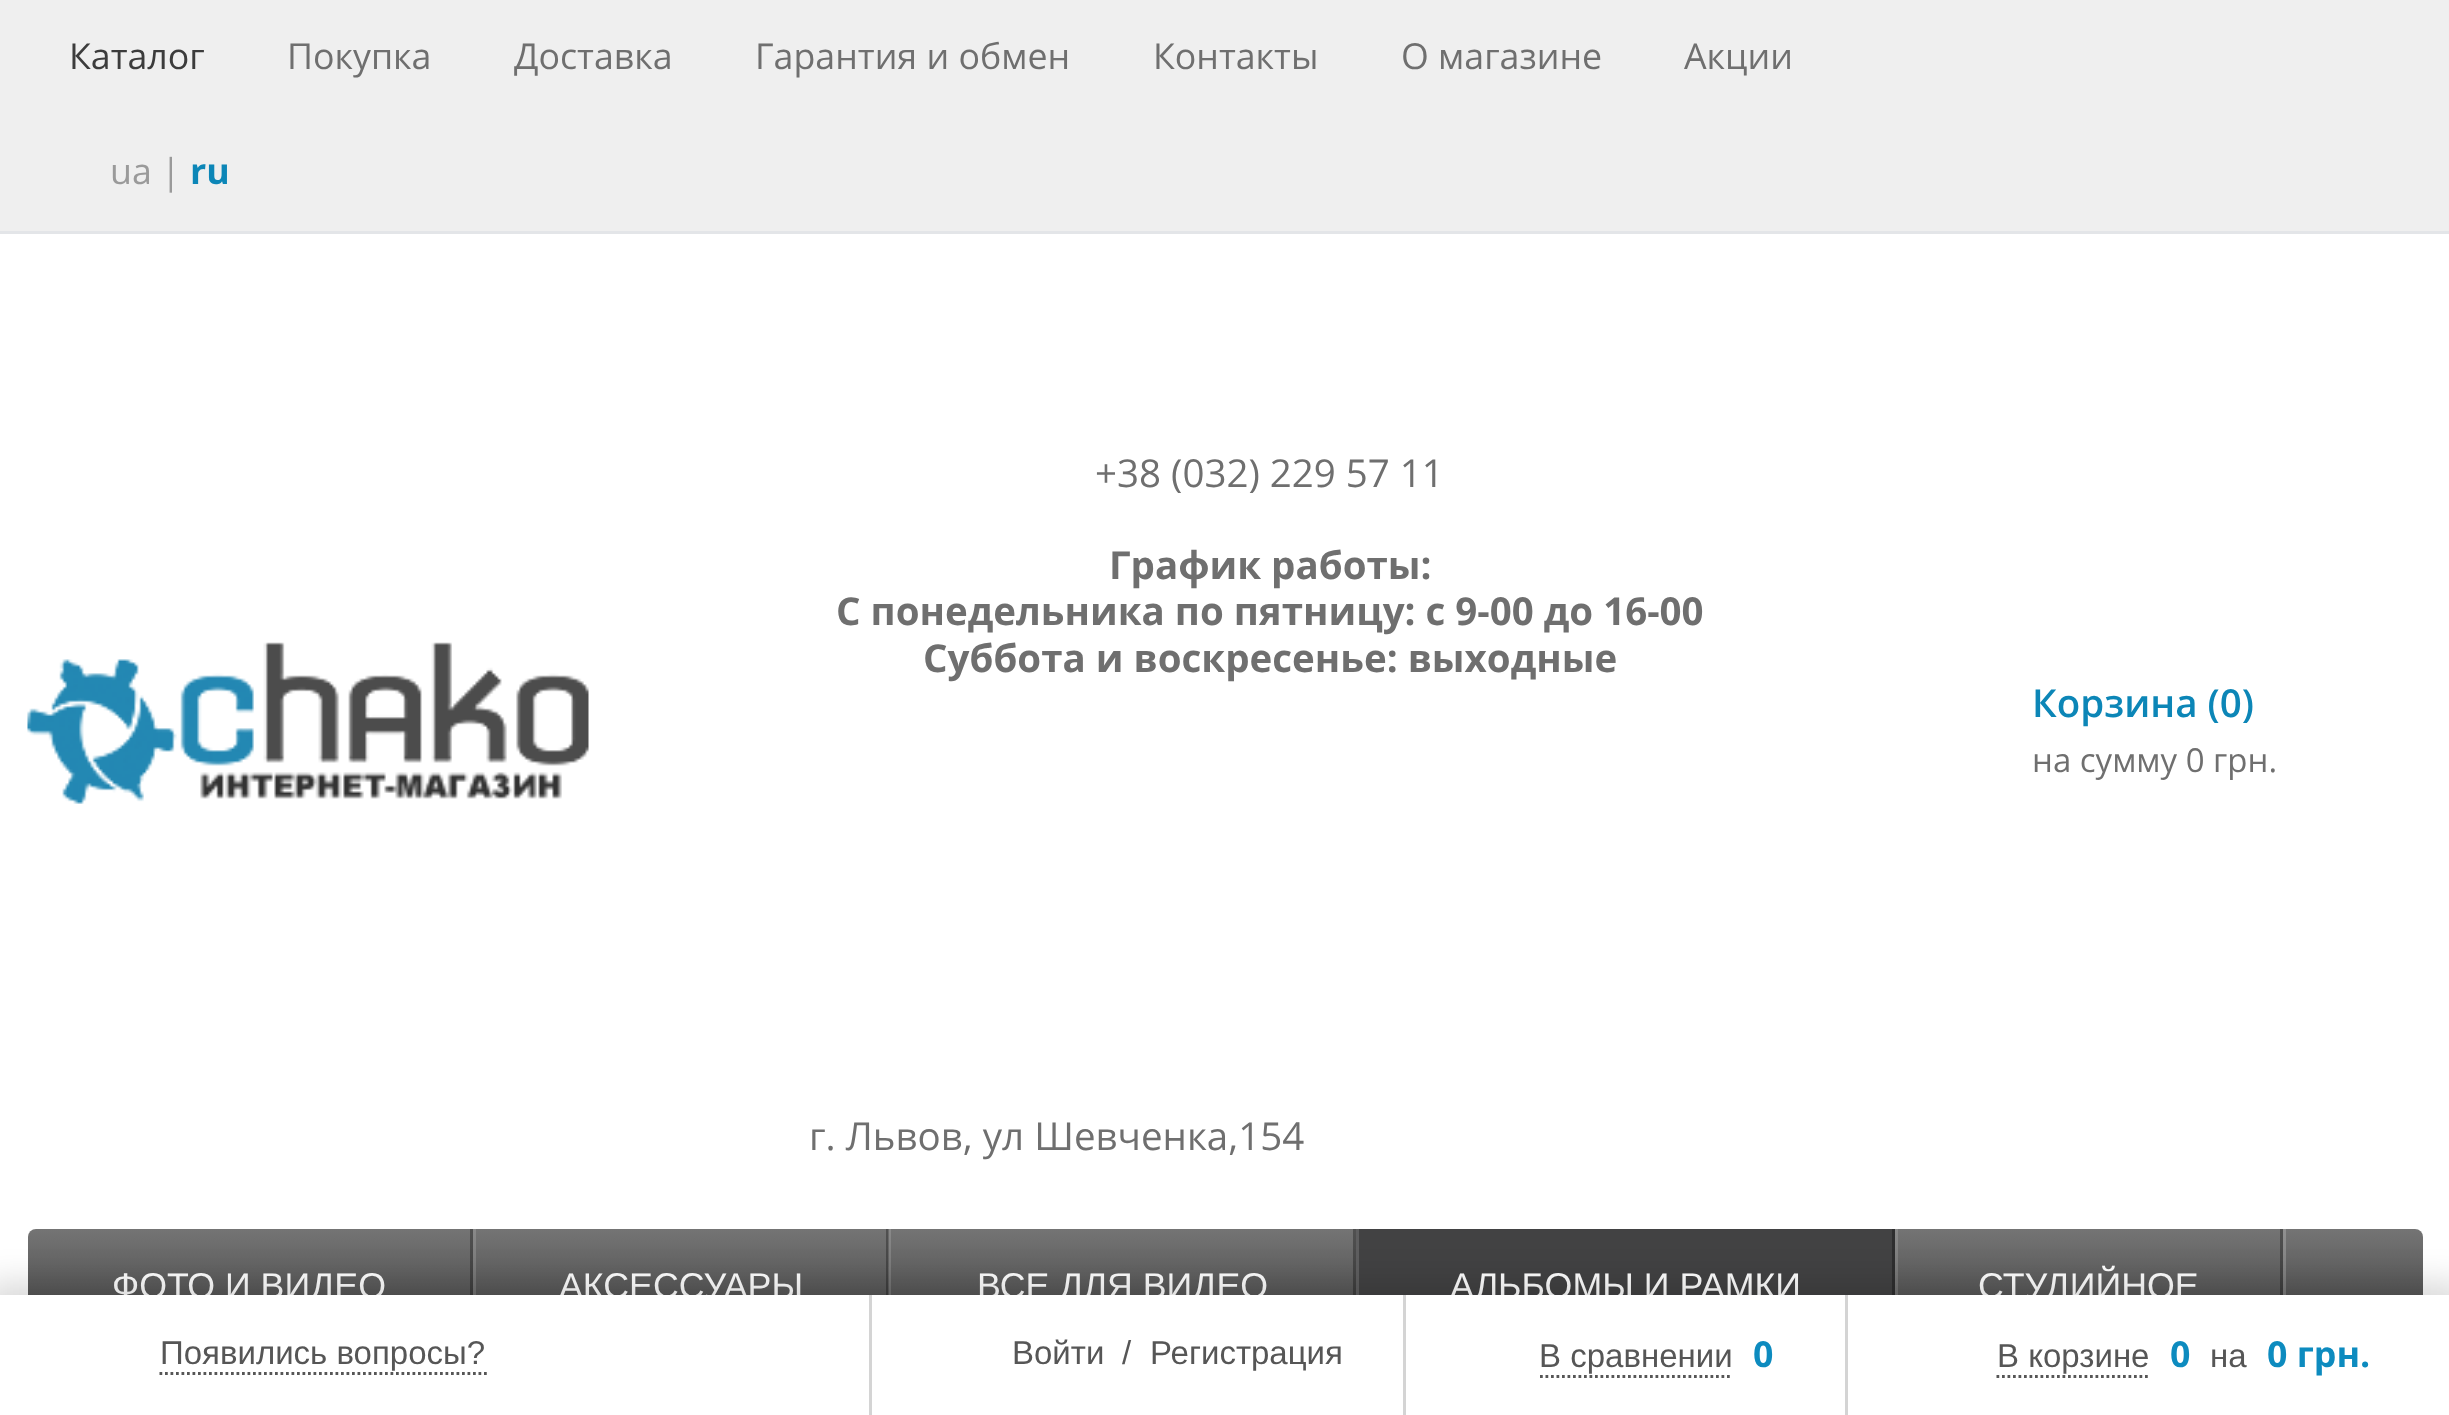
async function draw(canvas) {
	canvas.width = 2449;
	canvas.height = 1415;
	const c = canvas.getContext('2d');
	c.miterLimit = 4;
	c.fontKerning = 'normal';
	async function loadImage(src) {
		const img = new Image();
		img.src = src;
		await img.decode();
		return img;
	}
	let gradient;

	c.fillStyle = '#fff';
	c.fillRect(0, 0, 2449, 1415);
	c.fillStyle = '#efefef';
	c.fillRect(0, 0, 2449, 231);
	c.fillStyle = '#e3e5e8';
	c.fillRect(0, 231, 2449, 3);
	c.font = '35.75px Open Sans';
	c.fillStyle = '#3c3c3c';
	c.fillText('Каталог', 69, 69);
	c.fillStyle = '#6f6f6f';
	for (const [text, x, y] of [
		['Покупка', 287, 69],
		['Доставка', 514, 69],
		['Гарантия и обмен', 755, 69],
		['Контакты', 1153, 69],
		['О магазине', 1401, 69],
		['Акции', 1684, 69],
	]) {
		c.fillText(text, x, y);
	}
	c.fillStyle = '#9a9a9a';
	c.fillText('ua |', 110, 184);
	c.font = 'bold 35.75px Open Sans';
	c.fillStyle = '#0c86b7';
	c.fillText('ru', 190, 184);
	c.drawImage(await loadImage('img1.png'), 27, 642, 562, 162);
	c.font = '38.5px Open Sans';
	c.fillStyle = '#6f6f6f';
	c.fillText('+38 (032) 229 57 11', 1095, 487);
	c.font = 'bold 38.5px Open Sans';
	for (const [text, x, y] of [
		['График работы:', 1109, 579],
		['С понедельника по пятницу: с 9-00 до 16-00', 836, 625],
		['Суббота и воскресенье: выходные', 923, 672],
	]) {
		c.fillText(text, x, y);
	}
	c.font = '38.5px Open Sans';
	c.fillText('г. Львов, ул Шевченка,154', 809, 1150);
	c.font = '600 38.5px Open Sans';
	c.fillStyle = '#0c86b7';
	c.fillText('Корзина (0)', 2032, 717);
	c.font = '33px Open Sans';
	c.fillStyle = '#6f6f6f';
	c.fillText('на сумму 0 грн.', 2032, 772);
	gradient = c.createLinearGradient(1225, 1229, 1225, 1345);
	gradient.addColorStop(0, '#747474');
	gradient.addColorStop(1, '#424242');
	c.fillStyle = gradient;
	c.beginPath();
	c.roundRect(28, 1229, 2395, 116, 8);
	c.fill();
	gradient = c.createLinearGradient(1225, 1229, 1225, 1345);
	gradient.addColorStop(0, '#898989');
	gradient.addColorStop(1, '#5e5e5e');
	c.fillStyle = gradient;
	c.fillRect(1895, 1229, 3, 66);
	gradient = c.createLinearGradient(1225, 1229, 1225, 1345);
	gradient.addColorStop(0, '#515151');
	gradient.addColorStop(1, '#2e2e2e');
	c.fillStyle = gradient;
	c.fillRect(2280, 1229, 3, 66);
	gradient = c.createLinearGradient(1225, 1229, 1225, 1345);
	gradient.addColorStop(0, '#898989');
	gradient.addColorStop(1, '#5e5e5e');
	c.fillStyle = gradient;
	c.fillRect(889, 1229, 2, 66);
	gradient = c.createLinearGradient(1225, 1229, 1225, 1345);
	gradient.addColorStop(0, '#515151');
	gradient.addColorStop(1, '#2e2e2e');
	c.fillStyle = gradient;
	c.fillRect(1353, 1229, 3, 66);
	gradient = c.createLinearGradient(1225, 1229, 1225, 1345);
	gradient.addColorStop(0, '#898989');
	gradient.addColorStop(1, '#5e5e5e');
	c.fillStyle = gradient;
	c.fillRect(473, 1229, 3, 66);
	gradient = c.createLinearGradient(1225, 1229, 1225, 1345);
	gradient.addColorStop(0, '#515151');
	gradient.addColorStop(1, '#2e2e2e');
	c.fillStyle = gradient;
	c.fillRect(886, 1229, 2, 66);
	gradient = c.createLinearGradient(1225, 1229, 1225, 1345);
	gradient.addColorStop(0, '#6b6b6b');
	gradient.addColorStop(1, '#4d4d4d');
	c.fillStyle = gradient;
	c.fillRect(888, 1229, 1, 38);
	gradient = c.createLinearGradient(1225, 1229, 1225, 1345);
	gradient.addColorStop(0, '#515151');
	gradient.addColorStop(1, '#2e2e2e');
	c.fillStyle = gradient;
	c.fillRect(470, 1229, 3, 66);
	gradient = c.createLinearGradient(1225, 1229, 1225, 1345);
	gradient.addColorStop(0, '#909090');
	gradient.addColorStop(1, '#686868');
	c.fillStyle = gradient;
	c.fillRect(2283, 1229, 3, 66);
	c.font = '35.75px Liberation Sans';
	c.fillStyle = '#fff';
	for (const [text, x, y] of [
		['ФОТО И ВИДЕО', 112, 1298],
		['АКСЕССУАРЫ', 559, 1298],
		['ВСЕ ДЛЯ ВИДЕО', 977, 1298],
	]) {
		c.fillText(text, x, y);
	}
	for (const [x, y, w, h, color] of [
		[1359, 1229, 533, 66, '#424243'],
		[1892, 1229, 3, 66, '#2e2e2f'],
		[1356, 1229, 3, 66, '#5e5e5f'],
	]) {
		c.fillStyle = color;
		c.fillRect(x, y, w, h);
	}
	c.fillStyle = '#fff';
	c.fillText('АЛЬБОМЫ И РАМКИ', 1450, 1298);
	c.fillText('СТУДИЙНОЕ', 1978, 1298);
	c.fillStyle = '#00000026';
	c.filter = 'blur(16.5px)';
	c.beginPath();
	c.rect(-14, 1282, 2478, 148);
	c.fill();
	c.filter = 'none';
	c.fillStyle = '#fff';
	c.fillRect(0, 1295, 2449, 120);
	c.font = '33px Liberation Sans';
	c.fillStyle = '#565656';
	c.fillText('Появились вопросы?', 160, 1364);
	c.beginPath();
	c.moveTo(159.5, 1373.5);
	c.lineTo(487, 1373.5);
	c.strokeStyle = '#565656';
	c.lineWidth = 2.8;
	c.setLineDash([2.75, 2.75]);
	c.stroke();
	c.fillStyle = '#d4d4d4';
	c.fillRect(869, 1295, 3, 120);
	c.fillStyle = '#565656';
	for (const [text, x, y] of [
		['Войти', 1012, 1364],
		['/', 1122, 1364],
		['Регистрация', 1150, 1364],
	]) {
		c.fillText(text, x, y);
	}
	c.fillStyle = '#d4d4d4';
	c.fillRect(1403, 1295, 3, 120);
	c.fillStyle = '#565656';
	c.fillText('В сравнении', 1539, 1367);
	c.beginPath();
	c.moveTo(1540, 1376.5);
	c.lineTo(1732.5, 1376.5);
	c.stroke();
	c.font = 'bold 35.75px Open Sans';
	c.fillStyle = '#0d8bbf';
	c.fillText('0', 1753, 1367);
	c.fillStyle = '#d4d4d4';
	c.fillRect(1845, 1295, 3, 120);
	c.font = '33px Liberation Sans';
	c.fillStyle = '#565656';
	c.fillText('В корзине', 1997, 1367);
	c.beginPath();
	c.moveTo(1996.5, 1376.5);
	c.lineTo(2150.5, 1376.5);
	c.stroke();
	c.font = 'bold 35.75px Open Sans';
	c.fillStyle = '#0d8bbf';
	c.fillText('0', 2170, 1367);
	c.font = '33px Liberation Sans';
	c.fillStyle = '#565656';
	c.fillText('на', 2210, 1367);
	c.font = 'bold 35.75px Open Sans';
	c.fillStyle = '#0d8bbf';
	c.fillText('0 грн.', 2267, 1367);
}

draw(document.querySelector('canvas'));
